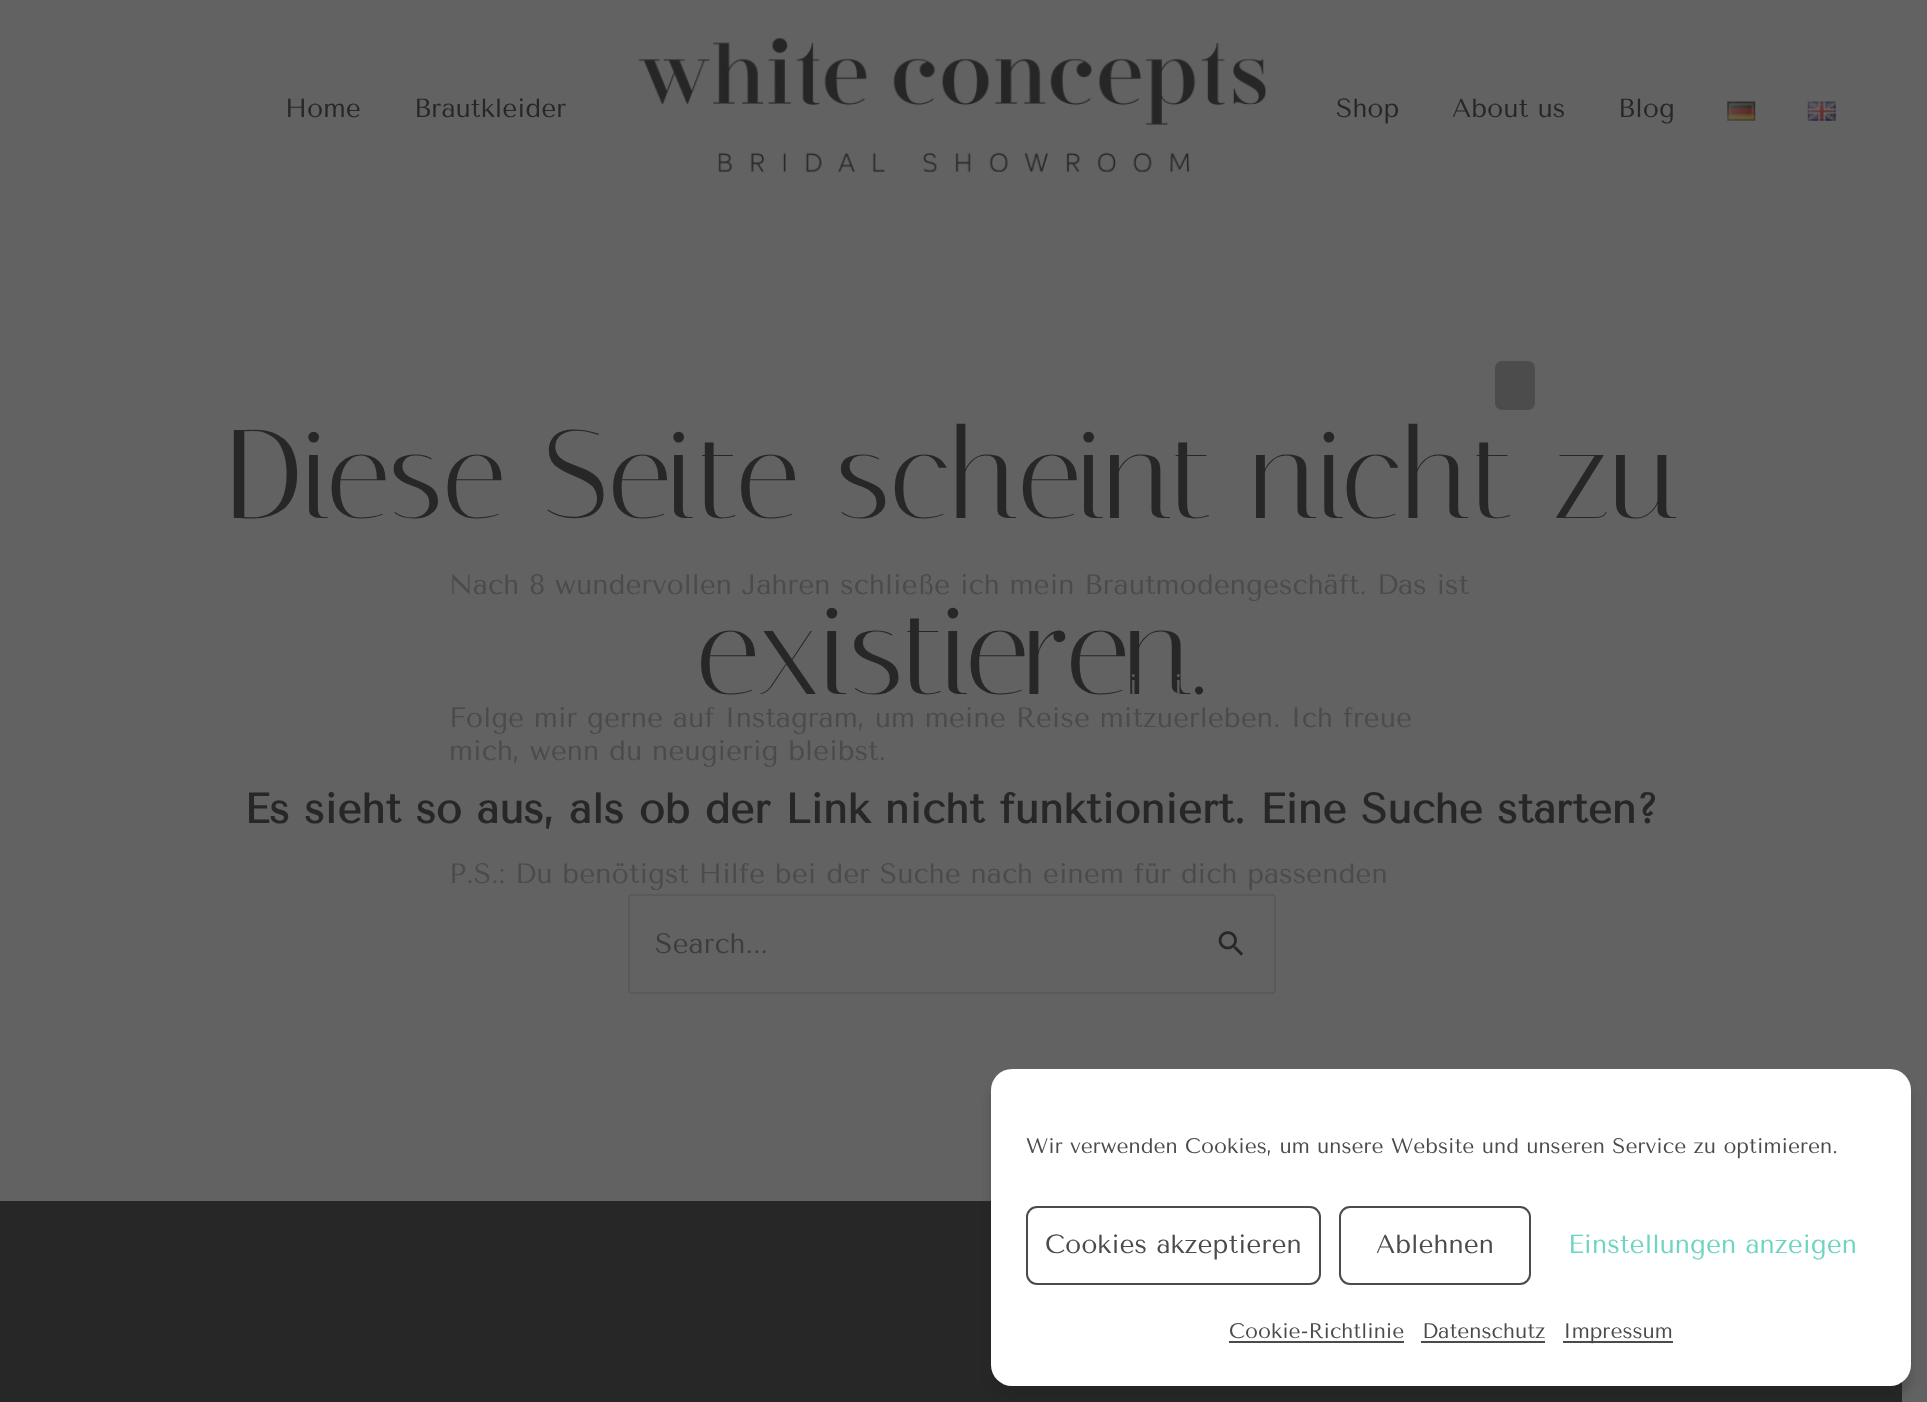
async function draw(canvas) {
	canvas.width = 1927;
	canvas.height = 1402;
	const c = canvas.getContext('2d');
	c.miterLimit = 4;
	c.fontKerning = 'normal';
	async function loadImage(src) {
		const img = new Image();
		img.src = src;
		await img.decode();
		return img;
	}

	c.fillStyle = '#626262';
	c.fillRect(0, 0, 1927, 1402);
	c.font = '26.25px Tenor Sans';
	c.fillStyle = '#272727';
	c.fillText('Home', 285, 117);
	c.fillText('Brautkleider', 414, 117);
	c.drawImage(await loadImage('img1.png'), 638, 37, 629, 136);
	for (const [text, x, y] of [
		['Shop', 1336, 117],
		['About us', 1452, 117],
		['Blog', 1618, 117],
	]) {
		c.fillText(text, x, y);
	}
	c.drawImage(await loadImage('img2.png'), 1727, 101, 29, 20);
	c.drawImage(await loadImage('img3.png'), 1807, 101, 29, 20);
	c.font = '126px Italiana';
	c.fillText('Diese Seite scheint nicht zu', 225, 518);
	c.fillText('existieren.', 696, 694);
	c.font = 'bold 42px Tenor Sans';
	c.fillText('Es sieht so aus, als ob der Link nicht funktioniert. Eine Suche starten?', 244, 823);
	c.beginPath();
	c.roundRect(629, 895, 646, 98, 3);
	c.strokeStyle = '#595959';
	c.lineWidth = 2;
	c.stroke();
	c.font = '28px Tenor Sans';
	c.fillStyle = '#3d3d3d';
	c.fillText('Search...', 655, 953);
	c.drawImage(await loadImage('img4.png'), 1218, 931, 26, 25);
	c.fillStyle = '#272727';
	c.fillRect(0, 1201, 1902, 201);
	c.fillStyle = '#4c4c4c';
	c.beginPath();
	c.roundRect(1495, 361, 40, 49, 7);
	c.fill();
	c.fillStyle = '#4b4b4b';
	c.fillText('Nach 8 wundervollen Jahren schließe ich mein Brautmodengeschäft. Das ist', 449, 594);
	c.fillStyle = '#5b5b5b';
	c.fillText('i', 1129, 694);
	c.fillText('i', 1174, 694);
	c.fillStyle = '#4b4b4b';
	for (const [text, x, y] of [
		['Folge mir gerne auf Instagram, um meine Reise mitzuerleben. Ich freue', 449, 727],
		['mich, wenn du neugierig bleibst.', 449, 760],
		['P.S.: Du benötigst Hilfe bei der Suche nach einem für dich passenden', 449, 883],
	]) {
		c.fillText(text, x, y);
	}
	c.fillStyle = '#1f1f1f3b';
	c.filter = 'blur(5px)';
	c.beginPath();
	c.roundRect(991, 1080, 920, 317, 21);
	c.fill();
	c.filter = 'none';
	c.fillStyle = '#fff';
	c.beginPath();
	c.roundRect(991, 1069, 920, 317, 21);
	c.fill();
	c.font = '21px Tenor Sans';
	c.fillStyle = '#4b4b4b';
	c.fillText('Wir verwenden Cookies, um unsere Website und unseren Service zu optimieren.', 1026, 1153);
	c.beginPath();
	c.roundRect(1027, 1207, 293, 77, 10);
	c.strokeStyle = '#4b4b4b';
	c.stroke();
	c.font = '26.25px Tenor Sans';
	c.fillText('Cookies akzeptieren', 1045, 1253);
	c.beginPath();
	c.roundRect(1340, 1207, 190, 77, 10);
	c.stroke();
	c.fillText('Ablehnen', 1376, 1253);
	c.fillStyle = '#70d4c3';
	c.fillText('Einstellungen anzeigen', 1568, 1253);
	c.font = '21px Tenor Sans';
	c.fillStyle = '#4b4b4b';
	c.fillText('Cookie-Richtlinie', 1229, 1338);
	c.fillRect(1229, 1341, 175, 2);
	c.fillText('Datenschutz', 1422, 1338);
	c.fillRect(1421, 1341, 124, 2);
	c.fillRect(1563, 1341, 110, 2);
	c.fillText('Impressum', 1563, 1338);
}

draw(document.querySelector('canvas'));
